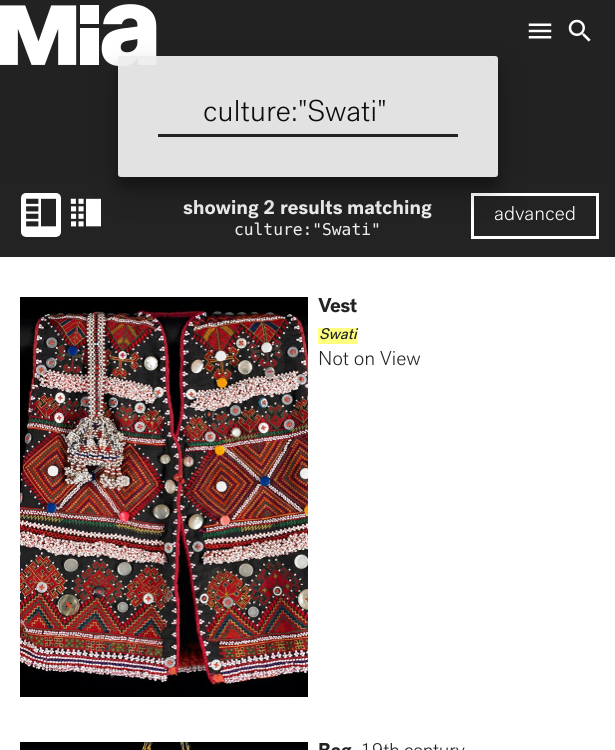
async function draw(canvas) {
	canvas.width = 615;
	canvas.height = 750;
	const c = canvas.getContext('2d');
	c.miterLimit = 4;
	c.fontKerning = 'normal';
	async function loadImage(src) {
		const img = new Image();
		img.src = src;
		await img.decode();
		return img;
	}

	c.fillStyle = '#fff';
	c.fillRect(0, 0, 615, 750);
	c.fillStyle = '#222';
	c.fillRect(0, 0, 615, 177);
	c.drawImage(await loadImage('img1.png'), 0, 4, 157, 62);
	c.drawImage(await loadImage('img2.png'), 528, 23, 24, 16);
	c.drawImage(await loadImage('img3.png'), 568, 19, 23, 23);
	c.fillStyle = '#232323';
	c.fillRect(0, 177, 615, 80);
	c.drawImage(await loadImage('img7.png'), 183, 200, 76, 19);
	c.drawImage(await loadImage('img8.png'), 264, 200, 10, 14);
	c.drawImage(await loadImage('img9.png'), 281, 200, 61, 15);
	c.drawImage(await loadImage('img10.png'), 348, 200, 84, 19);
	c.strokeStyle = '#fff';
	c.lineWidth = 3;
	c.strokeRect(472.5, 194.5, 125, 43);
	c.save();
	c.beginPath();
	c.moveTo(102, 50);
	c.lineTo(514, 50);
	c.lineTo(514, 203);
	c.lineTo(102, 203);
	c.closePath();
	c.moveTo(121, 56);
	c.lineTo(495, 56);
	c.bezierCurveTo(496.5, 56, 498, 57.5, 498, 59);
	c.lineTo(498, 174);
	c.bezierCurveTo(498, 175.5, 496.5, 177, 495, 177);
	c.lineTo(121, 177);
	c.bezierCurveTo(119.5, 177, 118, 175.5, 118, 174);
	c.lineTo(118, 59);
	c.bezierCurveTo(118, 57.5, 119.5, 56, 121, 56);
	c.closePath();
	c.clip('evenodd');
	c.fillStyle = '#00000036';
	c.filter = 'blur(5px)';
	c.beginPath();
	c.roundRect(118, 66, 380, 121, 3);
	c.fill();
	c.filter = 'none';
	c.restore();
	c.drawImage(await loadImage('img6.png'), 70, 198, 31, 29);
	c.drawImage(await loadImage('img11.png'), 494, 206, 81, 15);
	c.save();
	c.beginPath();
	c.moveTo(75, 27);
	c.lineTo(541, 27);
	c.lineTo(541, 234);
	c.lineTo(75, 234);
	c.closePath();
	c.moveTo(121, 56);
	c.lineTo(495, 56);
	c.bezierCurveTo(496.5, 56, 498, 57.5, 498, 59);
	c.lineTo(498, 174);
	c.bezierCurveTo(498, 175.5, 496.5, 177, 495, 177);
	c.lineTo(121, 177);
	c.bezierCurveTo(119.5, 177, 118, 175.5, 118, 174);
	c.lineTo(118, 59);
	c.bezierCurveTo(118, 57.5, 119.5, 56, 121, 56);
	c.closePath();
	c.clip('evenodd');
	c.fillStyle = '#0000003d';
	c.filter = 'blur(14px)';
	c.beginPath();
	c.roundRect(118, 70, 380, 121, 3);
	c.fill();
	c.filter = 'none';
	c.restore();
	c.fillStyle = '#edededf2';
	c.beginPath();
	c.roundRect(118, 56, 380, 121, 3);
	c.fill();
	c.fillStyle = '#232323';
	c.fillRect(158, 134, 300, 3);
	c.drawImage(await loadImage('img4.png'), 204, 99, 181, 23);
	c.fillStyle = '#fff';
	c.beginPath();
	c.roundRect(21, 193, 40, 44, 5);
	c.fill();
	c.drawImage(await loadImage('img5.png'), 26, 198, 30, 29);
	c.font = '16.25px DejaVu Sans Mono';
	c.fillStyle = '#ededed';
	c.fillText('culture:"Swati"', 234, 235);
	c.drawImage(await loadImage('img12.png'), 20, 297, 288, 400);
	c.drawImage(await loadImage('img13.png'), 318, 298, 39, 15);
	c.fillStyle = '#ffff80';
	c.fillRect(318, 328, 39, 16);
	c.drawImage(await loadImage('img14.png'), 320, 328, 39, 12);
	c.drawImage(await loadImage('img15.png'), 319, 351, 102, 15);
	c.drawImage(await loadImage('img16.png'), 20, 742, 288, 8);
	c.drawImage(await loadImage('img17.png'), 319, 743, 33, 7);
	c.drawImage(await loadImage('img18.png'), 362, 743, 103, 7);
}

draw(document.querySelector('canvas'));
